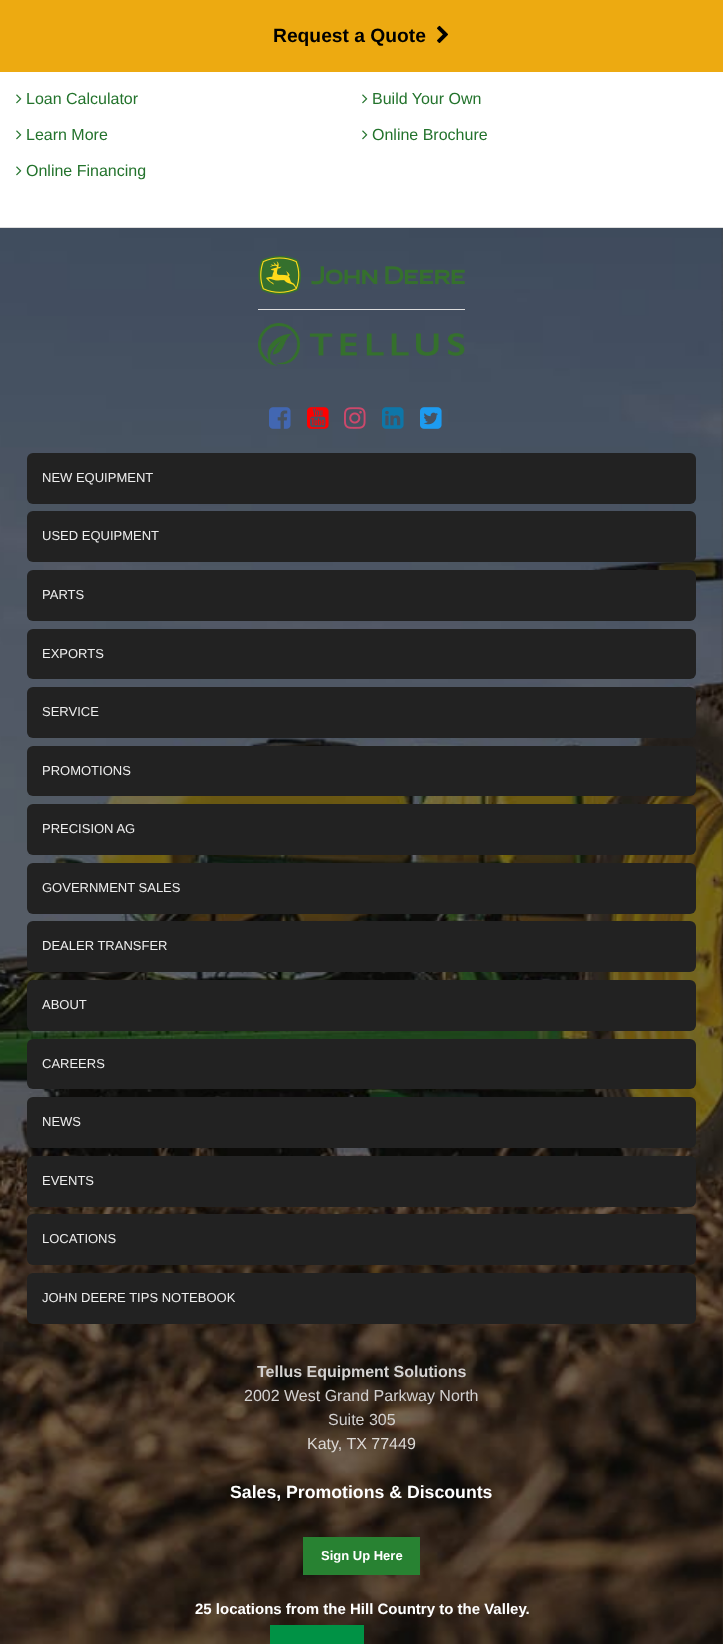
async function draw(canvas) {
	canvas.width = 723;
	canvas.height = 1644;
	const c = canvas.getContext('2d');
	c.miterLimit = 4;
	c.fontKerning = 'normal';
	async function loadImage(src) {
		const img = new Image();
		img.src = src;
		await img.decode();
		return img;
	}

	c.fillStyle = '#fff';
	c.fillRect(0, 0, 723, 1644);
	c.drawImage(await loadImage('img1.png'), 721, 228, 2, 1416);
	c.fillStyle = '#edaa11';
	c.fillRect(0, 0, 723, 72);
	c.font = 'bold 19.25px Liberation Sans';
	c.fillStyle = '#000';
	c.fillText('Request a Quote', 273, 42);
	c.drawImage(await loadImage('img2.png'), 437, 25, 11, 18);
	c.fillStyle = '#ddd';
	c.fillRect(0, 227, 723, 1);
	c.drawImage(await loadImage('img3.png'), 16, 94, 6, 10);
	c.font = '16px Liberation Sans';
	c.fillStyle = '#23732c';
	c.fillText('Loan Calculator', 26, 104);
	c.drawImage(await loadImage('img3.png'), 362, 94, 6, 10);
	c.fillText('Build Your Own', 372, 104);
	c.drawImage(await loadImage('img3.png'), 16, 130, 6, 10);
	c.fillText('Learn More', 26, 140);
	c.drawImage(await loadImage('img3.png'), 362, 130, 6, 10);
	c.fillText('Online Brochure', 372, 140);
	c.drawImage(await loadImage('img3.png'), 16, 166, 6, 10);
	c.fillText('Online Financing', 26, 176);
	c.drawImage(await loadImage('img4.png'), 0, 228, 723, 1416);
	c.fillStyle = '#ddd';
	c.fillRect(258, 309, 207, 1);
	c.drawImage(await loadImage('img5.png'), 258, 255, 207, 40);
	c.drawImage(await loadImage('img6.png'), 258, 323, 207, 43);
	c.drawImage(await loadImage('img7.png'), 269, 407, 22, 22);
	c.drawImage(await loadImage('img8.png'), 307, 407, 22, 22);
	c.drawImage(await loadImage('img9.png'), 344, 407, 22, 22);
	c.drawImage(await loadImage('img10.png'), 382, 407, 22, 22);
	c.drawImage(await loadImage('img11.png'), 420, 407, 22, 22);
	c.fillStyle = '#222';
	c.beginPath();
	c.roundRect(27, 453, 669, 51, 6);
	c.fill();
	c.font = '13px Liberation Sans';
	c.fillStyle = '#ededed';
	c.fillText('NEW EQUIPMENT', 42, 482);
	c.fillStyle = '#222';
	c.beginPath();
	c.roundRect(27, 511, 669, 51, 6);
	c.fill();
	c.fillStyle = '#ededed';
	c.fillText('USED EQUIPMENT', 42, 540);
	c.fillStyle = '#222';
	c.beginPath();
	c.roundRect(27, 570, 669, 51, 6);
	c.fill();
	c.fillStyle = '#ededed';
	c.fillText('PARTS', 42, 599);
	c.fillStyle = '#222';
	c.beginPath();
	c.roundRect(27, 629, 669, 50, 6);
	c.fill();
	c.fillStyle = '#ededed';
	c.fillText('EXPORTS', 42, 658);
	c.fillStyle = '#222';
	c.beginPath();
	c.roundRect(27, 687, 669, 51, 6);
	c.fill();
	c.fillStyle = '#ededed';
	c.fillText('SERVICE', 42, 716);
	c.fillStyle = '#222';
	c.beginPath();
	c.roundRect(27, 746, 669, 50, 6);
	c.fill();
	c.fillStyle = '#ededed';
	c.fillText('PROMOTIONS', 42, 775);
	c.fillStyle = '#222';
	c.beginPath();
	c.roundRect(27, 804, 669, 51, 6);
	c.fill();
	c.fillStyle = '#ededed';
	c.fillText('PRECISION AG', 42, 833);
	c.fillStyle = '#222';
	c.beginPath();
	c.roundRect(27, 863, 669, 51, 6);
	c.fill();
	c.fillStyle = '#ededed';
	c.fillText('GOVERNMENT SALES', 42, 892);
	c.fillStyle = '#222';
	c.beginPath();
	c.roundRect(27, 921, 669, 51, 6);
	c.fill();
	c.fillStyle = '#ededed';
	c.fillText('DEALER TRANSFER', 42, 950);
	c.fillStyle = '#222';
	c.beginPath();
	c.roundRect(27, 980, 669, 51, 6);
	c.fill();
	c.fillStyle = '#ededed';
	c.fillText('ABOUT', 42, 1009);
	c.fillStyle = '#222';
	c.beginPath();
	c.roundRect(27, 1039, 669, 50, 6);
	c.fill();
	c.fillStyle = '#ededed';
	c.fillText('CAREERS', 42, 1068);
	c.fillStyle = '#222';
	c.beginPath();
	c.roundRect(27, 1097, 669, 51, 6);
	c.fill();
	c.fillStyle = '#ededed';
	c.fillText('NEWS', 42, 1126);
	c.fillStyle = '#222';
	c.beginPath();
	c.roundRect(27, 1156, 669, 51, 6);
	c.fill();
	c.fillStyle = '#ededed';
	c.fillText('EVENTS', 42, 1185);
	c.fillStyle = '#222';
	c.beginPath();
	c.roundRect(27, 1214, 669, 51, 6);
	c.fill();
	c.fillStyle = '#ededed';
	c.fillText('LOCATIONS', 42, 1243);
	c.fillStyle = '#222';
	c.beginPath();
	c.roundRect(27, 1273, 669, 51, 6);
	c.fill();
	c.fillStyle = '#ededed';
	c.fillText('JOHN DEERE TIPS NOTEBOOK', 42, 1302);
	c.font = 'bold 16px Liberation Sans';
	c.fillStyle = '#d3d1d0';
	c.fillText('Tellus Equipment Solutions', 257, 1377);
	c.font = '16px Liberation Sans';
	c.fillText('2002 West Grand Parkway North', 244, 1401);
	c.fillText('Suite 305', 328, 1425);
	c.fillStyle = '#dcd9d6';
	c.fillText('Katy, TX 77449', 307, 1449);
	c.font = 'bold 17.7px Liberation Sans';
	c.fillStyle = '#fff';
	c.fillText('Sales, Promotions & Discounts', 230, 1498);
	c.fillStyle = '#288232';
	c.fillRect(303, 1537, 117, 38);
	c.font = 'bold 13px Liberation Sans';
	c.fillStyle = '#fff';
	c.fillText('Sign Up Here', 321, 1560);
	c.font = 'bold 15px Liberation Sans';
	c.fillText('25 locations from the Hill Country to the Valley.', 195, 1614);
	c.fillStyle = '#009245';
	c.fillRect(270, 1625, 94, 19);
}

draw(document.querySelector('canvas'));
